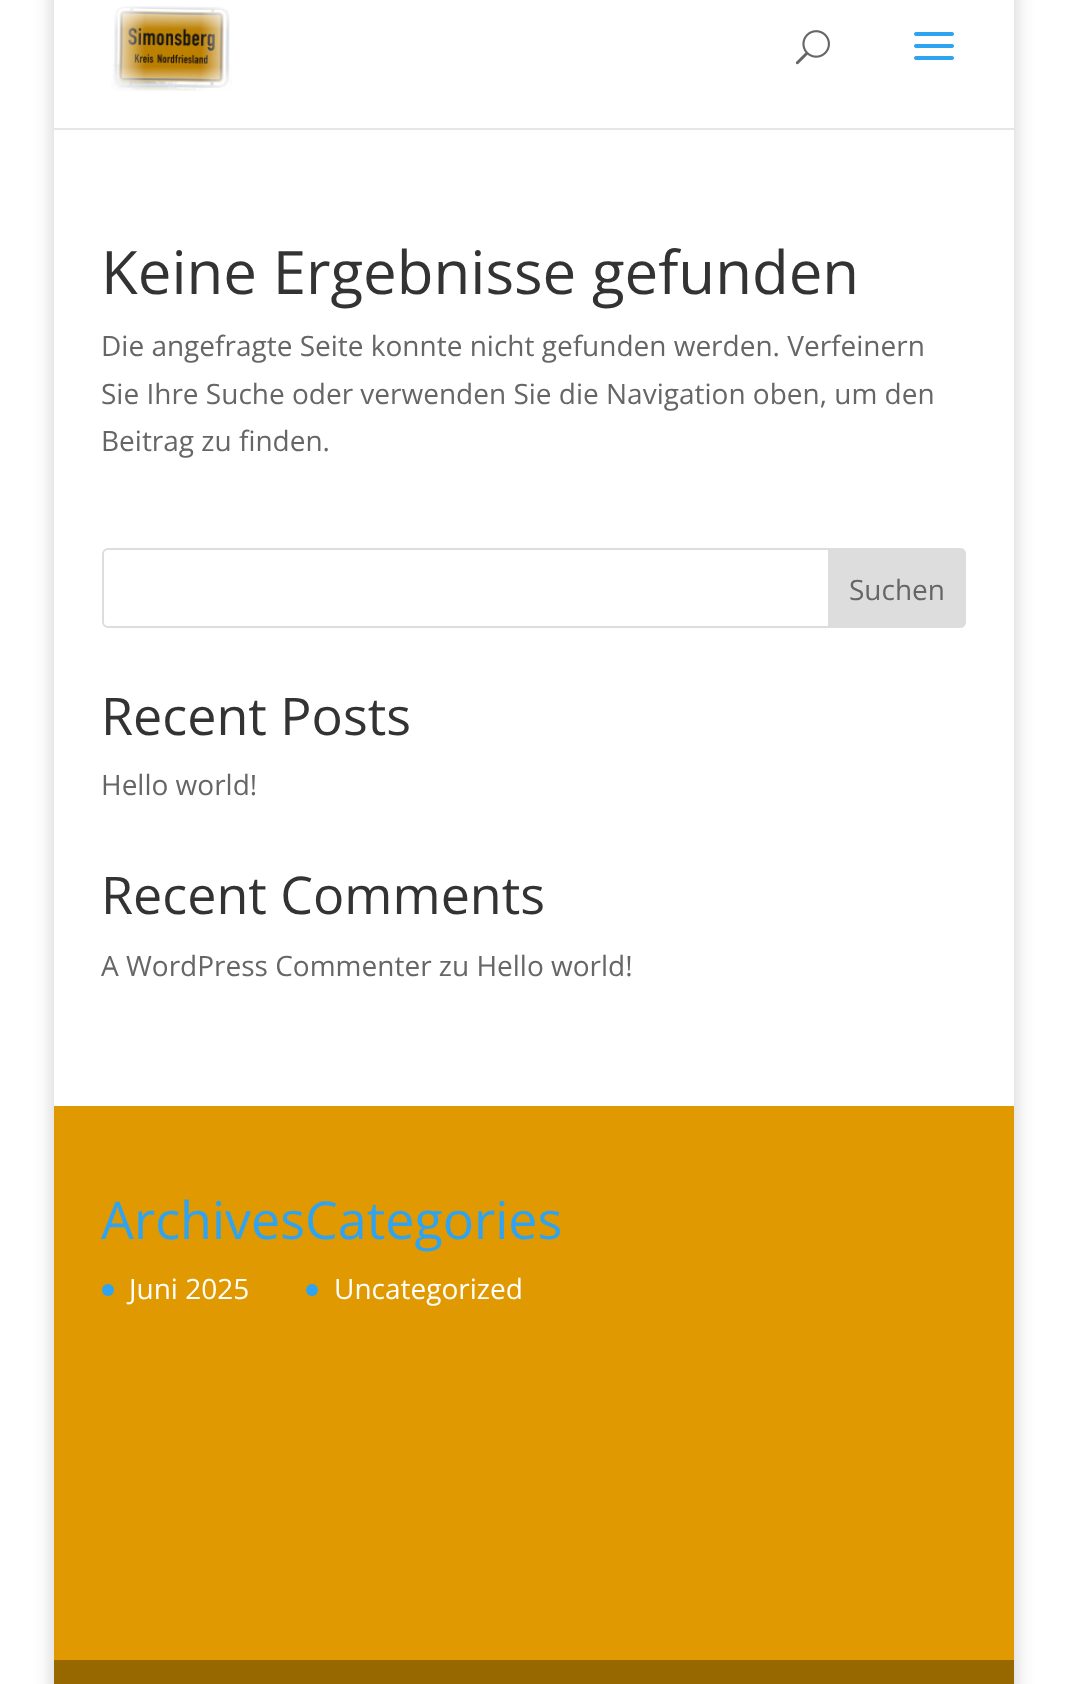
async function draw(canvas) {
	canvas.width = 1067;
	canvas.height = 1684;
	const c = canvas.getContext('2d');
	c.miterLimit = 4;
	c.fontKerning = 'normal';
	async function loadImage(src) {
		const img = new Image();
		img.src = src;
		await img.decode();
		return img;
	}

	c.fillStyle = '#fff';
	c.fillRect(0, 0, 1067, 1684);
	c.save();
	c.beginPath();
	c.moveTo(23, 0);
	c.lineTo(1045, 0);
	c.lineTo(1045, 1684);
	c.lineTo(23, 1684);
	c.closePath();
	c.moveTo(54, -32);
	c.lineTo(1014, -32);
	c.lineTo(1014, 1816);
	c.lineTo(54, 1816);
	c.closePath();
	c.clip('evenodd');
	c.fillStyle = '#00000033';
	c.filter = 'blur(10px)';
	c.beginPath();
	c.rect(54, -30, 960, 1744);
	c.fill();
	c.filter = 'none';
	c.restore();
	c.fillStyle = '#e6e6e6';
	c.fillRect(54, 128, 960, 2);
	c.drawImage(await loadImage('img1.png'), 111, 6, 121, 85);
	c.drawImage(await loadImage('img2.png'), 795, 30, 35, 35);
	c.drawImage(await loadImage('img3.png'), 914, 32, 40, 28);
	c.font = '60px Open Sans';
	c.fillStyle = '#333';
	c.fillText('Keine Ergebnisse gefunden', 101, 294);
	c.font = '28px Open Sans';
	c.fillStyle = '#666';
	for (const [text, x, y] of [
		['Die angefragte Seite konnte nicht gefunden werden. Verfeinern', 101, 356],
		['Sie Ihre Suche oder verwenden Sie die Navigation oben, um den', 101, 404],
		['Beitrag zu finden.', 101, 451],
	]) {
		c.fillText(text, x, y);
	}
	c.beginPath();
	c.roundRect(103, 549, 862, 78, 5);
	c.strokeStyle = '#ddd';
	c.lineWidth = 2;
	c.stroke();
	c.fillStyle = '#ddd';
	c.beginPath();
	c.roundRect(829, 549, 136, 78, [0, 5, 5, 0]);
	c.fill();
	c.stroke();
	c.fillStyle = '#666';
	c.fillText('Suchen', 849, 600);
	c.font = '52px Open Sans';
	c.fillStyle = '#333';
	c.fillText('Recent Posts', 101, 735);
	c.font = '28px Open Sans';
	c.fillStyle = '#666';
	c.fillText('Hello world!', 101, 795);
	c.font = '52px Open Sans';
	c.fillStyle = '#333';
	c.fillText('Recent Comments', 101, 914);
	c.font = '28px Open Sans';
	c.fillStyle = '#666';
	c.fillText('A WordPress Commenter zu Hello world!', 101, 976);
	c.fillStyle = '#e09900';
	c.fillRect(54, 1106, 960, 554);
	c.font = '52px Open Sans';
	c.fillStyle = '#2ea3f2';
	c.fillText('ArchivesCategories', 101, 1239);
	c.beginPath();
	c.arc(108, 1290, 6, 0, 2 * Math.PI);
	c.fill();
	c.font = '28px Open Sans';
	c.fillStyle = '#fff';
	c.fillText('Juni 2025', 129, 1299);
	c.fillStyle = '#2ea3f2';
	c.beginPath();
	c.arc(312, 1290, 6, 0, 2 * Math.PI);
	c.fill();
	c.fillStyle = '#fff';
	c.fillText('Uncategorized', 334, 1299);
	c.fillStyle = '#986800';
	c.fillRect(54, 1660, 960, 24);
}

draw(document.querySelector('canvas'));
